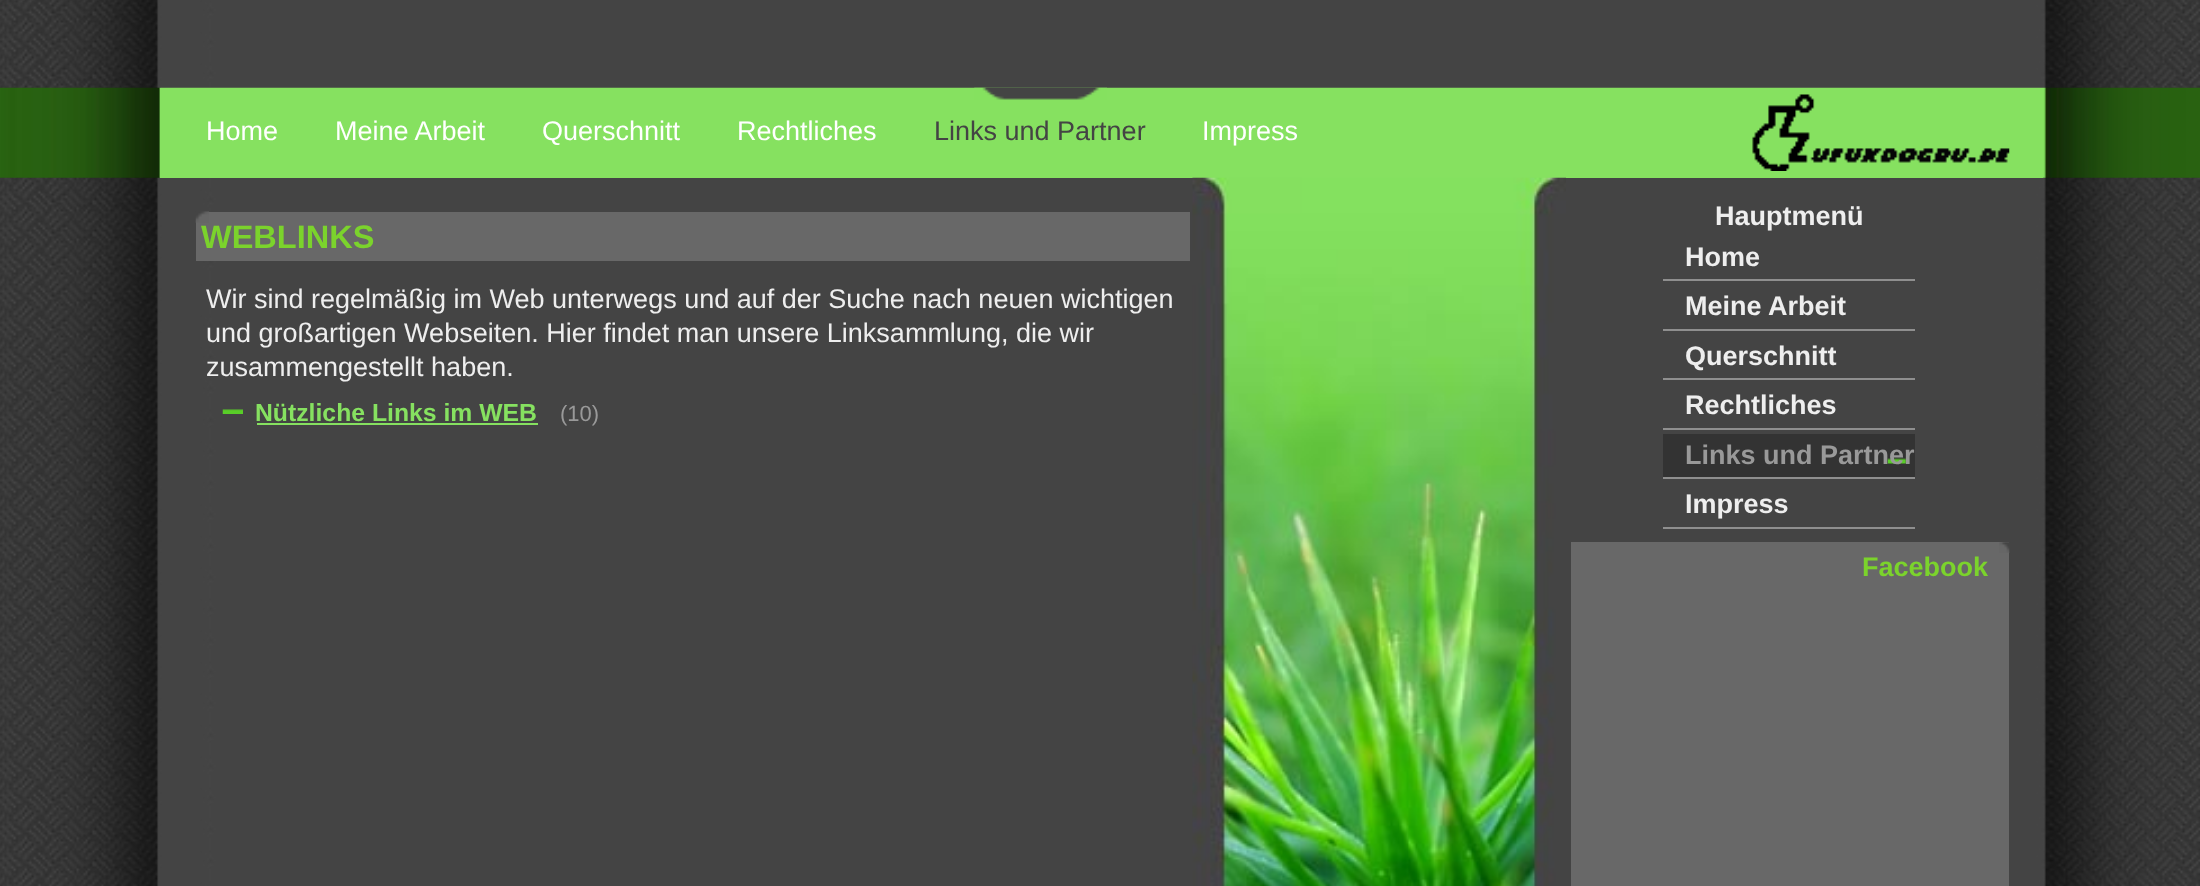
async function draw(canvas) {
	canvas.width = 2200;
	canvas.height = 886;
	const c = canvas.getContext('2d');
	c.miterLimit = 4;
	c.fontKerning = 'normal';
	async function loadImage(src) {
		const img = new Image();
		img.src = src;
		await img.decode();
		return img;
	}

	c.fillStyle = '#fff';
	c.fillRect(0, 0, 2200, 886);
	c.drawImage(await loadImage('img1.png'), 0, 0, 2200, 886);
	c.drawImage(await loadImage('img2.png'), 0, 87, 2200, 91);
	c.fillStyle = '#86e160';
	c.fillRect(160, 88, 1883, 90);
	c.drawImage(await loadImage('img3.png'), 1752, 94, 258, 77);
	c.drawImage(await loadImage('img4.png'), 974, 87, 133, 13);
	c.font = '27px Liberation Sans';
	c.fillStyle = '#fff';
	for (const [text, x, y] of [
		['Home', 206, 140],
		['Meine Arbeit', 335, 140],
		['Querschnitt', 542, 140],
		['Rechtliches', 737, 140],
	]) {
		c.fillText(text, x, y);
	}
	c.fillStyle = '#444';
	c.fillText('Links und Partner', 934, 140);
	c.fillStyle = '#fff';
	c.fillText('Impress', 1202, 140);
	c.fillStyle = '#686868';
	c.fillRect(196, 212, 994, 49);
	c.drawImage(await loadImage('img5.png'), 195, 211, 14, 12);
	c.font = 'bold 32.5px Liberation Sans';
	c.fillStyle = '#7bd32c';
	c.fillText('WEBLINKS', 201, 248);
	c.font = '27px Liberation Sans';
	c.fillStyle = '#eee';
	for (const [text, x, y] of [
		['Wir sind regelmäßig im Web unterwegs und auf der Suche nach neuen wichtigen', 206, 308],
		['und großartigen Webseiten. Hier findet man unsere Linksammlung, die wir', 206, 342],
		['zusammengestellt haben.', 206, 376],
	]) {
		c.fillText(text, x, y);
	}
	c.drawImage(await loadImage('img6.png'), 222, 409, 21, 5);
	c.font = 'bold 24.75px Liberation Sans';
	c.fillStyle = '#86e160';
	c.fillText('Nützliche Links im WEB', 255, 421);
	c.fillRect(257, 423, 281, 2);
	c.font = '22px Liberation Sans';
	c.fillStyle = '#999';
	c.fillText('(10)', 560, 421);
	c.drawImage(await loadImage('img7.png'), 1192, 177, 374, 709);
	c.font = 'bold 27px Liberation Sans';
	c.fillStyle = '#eee';
	c.fillText('Hauptmenü', 1715, 225);
	c.fillStyle = '#8f8f8f';
	c.fillRect(1663, 279, 252, 2);
	c.fillStyle = '#eee';
	c.fillText('Home', 1685, 266);
	c.fillStyle = '#8f8f8f';
	c.fillRect(1663, 329, 252, 2);
	c.fillStyle = '#eee';
	c.fillText('Meine Arbeit', 1685, 315);
	c.fillStyle = '#8f8f8f';
	c.fillRect(1663, 378, 252, 2);
	c.fillStyle = '#eee';
	c.fillText('Querschnitt', 1685, 365);
	c.fillStyle = '#8f8f8f';
	c.fillRect(1663, 428, 252, 2);
	c.fillStyle = '#eee';
	c.fillText('Rechtliches', 1685, 414);
	c.fillStyle = '#333';
	c.fillRect(1663, 434, 252, 43);
	c.drawImage(await loadImage('img8.png'), 1887, 458, 19, 6);
	c.fillStyle = '#8f8f8f';
	c.fillRect(1663, 477, 252, 2);
	c.fillStyle = '#999';
	c.fillText('Links und Partner', 1685, 464);
	c.fillStyle = '#8f8f8f';
	c.fillRect(1663, 527, 252, 2);
	c.fillStyle = '#eee';
	c.fillText('Impress', 1685, 513);
	c.fillStyle = '#686868';
	c.fillRect(1571, 542, 438, 344);
	c.drawImage(await loadImage('img9.png'), 1999, 542, 11, 11);
	c.fillStyle = '#7bd32c';
	c.fillText('Facebook', 1862, 576);
}

draw(document.querySelector('canvas'));
